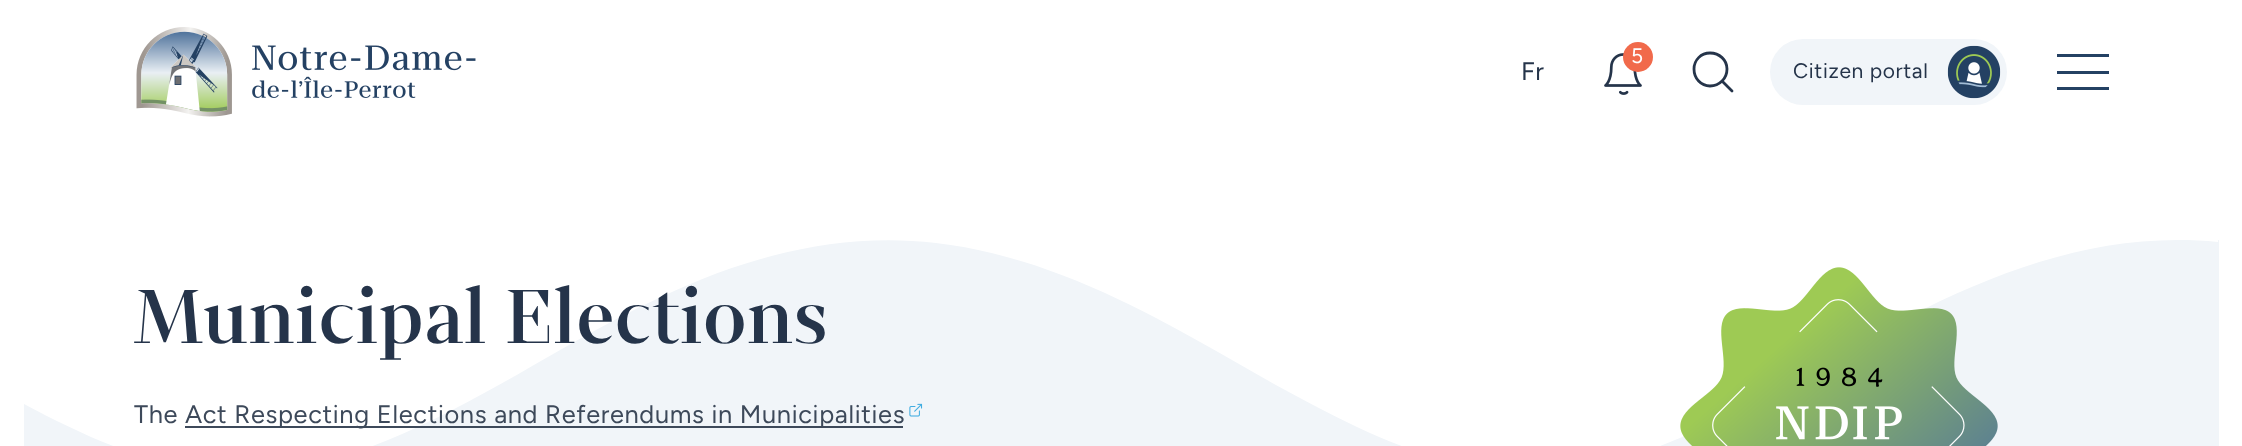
async function draw(canvas) {
	canvas.width = 2242;
	canvas.height = 446;
	const c = canvas.getContext('2d');
	c.miterLimit = 4;
	c.fontKerning = 'normal';
	async function loadImage(src) {
		const img = new Image();
		img.src = src;
		await img.decode();
		return img;
	}

	c.fillStyle = '#fff';
	c.fillRect(0, 0, 2242, 446);
	c.drawImage(await loadImage('img1.png'), 136, 27, 340, 90);
	c.letterSpacing = '0.65px';
	c.font = '25.45px Figtree';
	c.fillStyle = '#25344a';
	c.fillText('Fr', 1521, 80);
	c.drawImage(await loadImage('img2.png'), 1604, 53, 38, 42);
	c.fillStyle = '#f16a4b';
	c.beginPath();
	c.arc(1638, 57, 15, 0, 2 * Math.PI);
	c.fill();
	c.font = '21px Figtree';
	c.fillStyle = '#fff';
	c.fillText('5', 1631, 63);
	c.beginPath();
	c.moveTo(1710, 86);
	c.bezierCurveTo(1719.5, 86, 1727, 78.5, 1727, 69);
	c.bezierCurveTo(1727, 60, 1719.5, 53, 1710, 53);
	c.bezierCurveTo(1701, 53, 1694, 60, 1694, 69);
	c.bezierCurveTo(1694, 78.5, 1701, 86, 1710, 86);
	c.closePath();
	c.moveTo(1722.5, 81.5);
	c.lineTo(1732, 91);
	c.strokeStyle = '#25344a';
	c.lineWidth = 2.8;
	c.lineCap = 'round';
	c.lineJoin = 'round';
	c.stroke();
	c.fillStyle = '#f1f5f9';
	c.beginPath();
	c.roundRect(1770, 39, 237, 66, 33);
	c.fill();
	c.fillStyle = '#25344a';
	c.fillText('Citizen portal', 1793, 78);
	c.drawImage(await loadImage('img3.png'), 1947, 45, 54, 54);
	for (const [x, y, w, h, color] of [
		[2057, 54, 52, 3, '#244163'],
		[2057, 71, 52, 3, '#244163'],
		[2057, 87, 52, 3, '#244163'],
	]) {
		c.fillStyle = color;
		c.fillRect(x, y, w, h);
	}
	c.fillStyle = '#f1f5f9';
	c.beginPath();
	c.moveTo(2219, 240);
	c.lineTo(2218, 240);
	c.lineTo(2218, 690);
	c.lineTo(2219, 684);
	c.closePath();
	c.fill();
	c.beginPath();
	c.moveTo(24, 404);
	c.lineTo(24, 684);
	c.bezierCurveTo(24, 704, 40, 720, 60, 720);
	c.lineTo(2183, 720);
	c.bezierCurveTo(2200, 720, 2214, 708, 2218, 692);
	c.lineTo(2218, 242);
	c.bezierCurveTo(2107, 231, 2006, 267, 1908, 317);
	c.bezierCurveTo(1854, 345, 1802, 378, 1747, 406);
	c.bezierCurveTo(1691, 435, 1632, 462, 1568, 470);
	c.bezierCurveTo(1476, 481, 1395, 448, 1315, 406);
	c.bezierCurveTo(1261, 378, 1210, 346, 1156, 318);
	c.bezierCurveTo(1087, 282, 1014, 252, 936, 243);
	c.bezierCurveTo(838, 232, 749, 256, 661, 297);
	c.bezierCurveTo(604, 323, 551, 356, 497, 386);
	c.bezierCurveTo(410, 434, 318, 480, 215, 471);
	c.bezierCurveTo(147, 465, 84, 436, 24, 404);
	c.closePath();
	c.fill();
	c.font = '500 82.5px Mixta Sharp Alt';
	c.fillStyle = '#25344a';
	c.fillText('Municipal Elections', 134, 343);
	c.font = '25.45px Figtree';
	c.fillStyle = '#3d495a';
	c.fillText('The', 134, 423);
	c.fillRect(185, 426, 718, 2);
	c.fillText('Act Respecting Elections and Referendums in Municipalities', 185, 423);
	c.drawImage(await loadImage('img4.png'), 909, 403, 14, 14);
	c.drawImage(await loadImage('img5.png'), 1680, 267, 318, 179);
}

draw(document.querySelector('canvas'));
